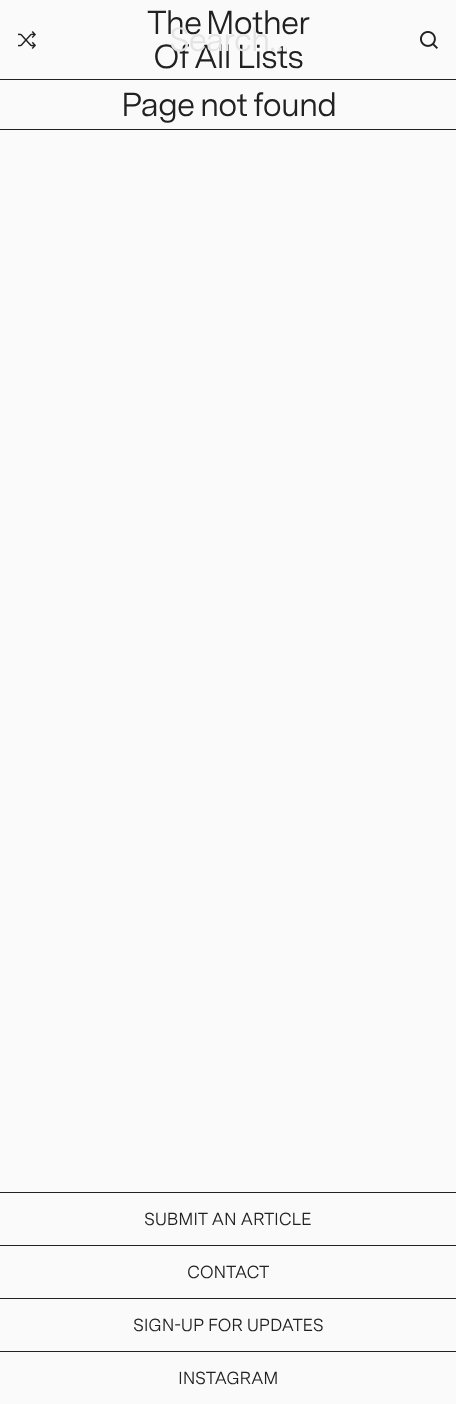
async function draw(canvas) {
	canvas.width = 456;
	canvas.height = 1404;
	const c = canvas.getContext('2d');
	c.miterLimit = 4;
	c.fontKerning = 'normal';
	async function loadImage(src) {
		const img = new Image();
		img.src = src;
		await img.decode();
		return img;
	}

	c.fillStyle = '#fafafa';
	c.fillRect(0, 0, 456, 1404);
	c.fillStyle = '#212121';
	c.fillRect(0, 79, 456, 1);
	c.letterSpacing = '-1.3px';
	c.wordSpacing = '-2px';
	c.font = '33.25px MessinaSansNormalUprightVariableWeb';
	c.fillText('The Mother', 147, 34);
	c.wordSpacing = '-1px';
	c.fillText('Of All Lists', 153, 68);
	c.drawImage(await loadImage('img1.png'), 18, 31, 18, 18);
	c.save();
	c.beginPath();
	c.rect(169, 16, 118, 47);
	c.clip();
	c.wordSpacing = '0px';
	c.fillStyle = '#e4e4e4';
	c.fillText('Search…', 169, 51);
	c.restore();
	c.drawImage(await loadImage('img2.png'), 420, 31, 18, 18);
	c.fillRect(0, 129, 456, 1);
	c.fillText('Page not found', 121, 116);
	c.fillRect(0, 1192, 456, 1);
	c.letterSpacing = '-0.2px';
	c.wordSpacing = '0px';
	c.font = '17.4px MessinaSansNormalUprightVariableWeb';
	c.fillText('SUBMIT AN ARTICLE', 144, 1225);
	c.fillRect(0, 1245, 456, 1);
	c.fillText('CONTACT', 187, 1278);
	c.fillRect(0, 1298, 456, 1);
	c.fillText('SIGN-UP FOR UPDATES', 133, 1331);
	c.fillRect(0, 1351, 456, 1);
	c.fillText('INSTAGRAM', 178, 1384);
}

draw(document.querySelector('canvas'));
